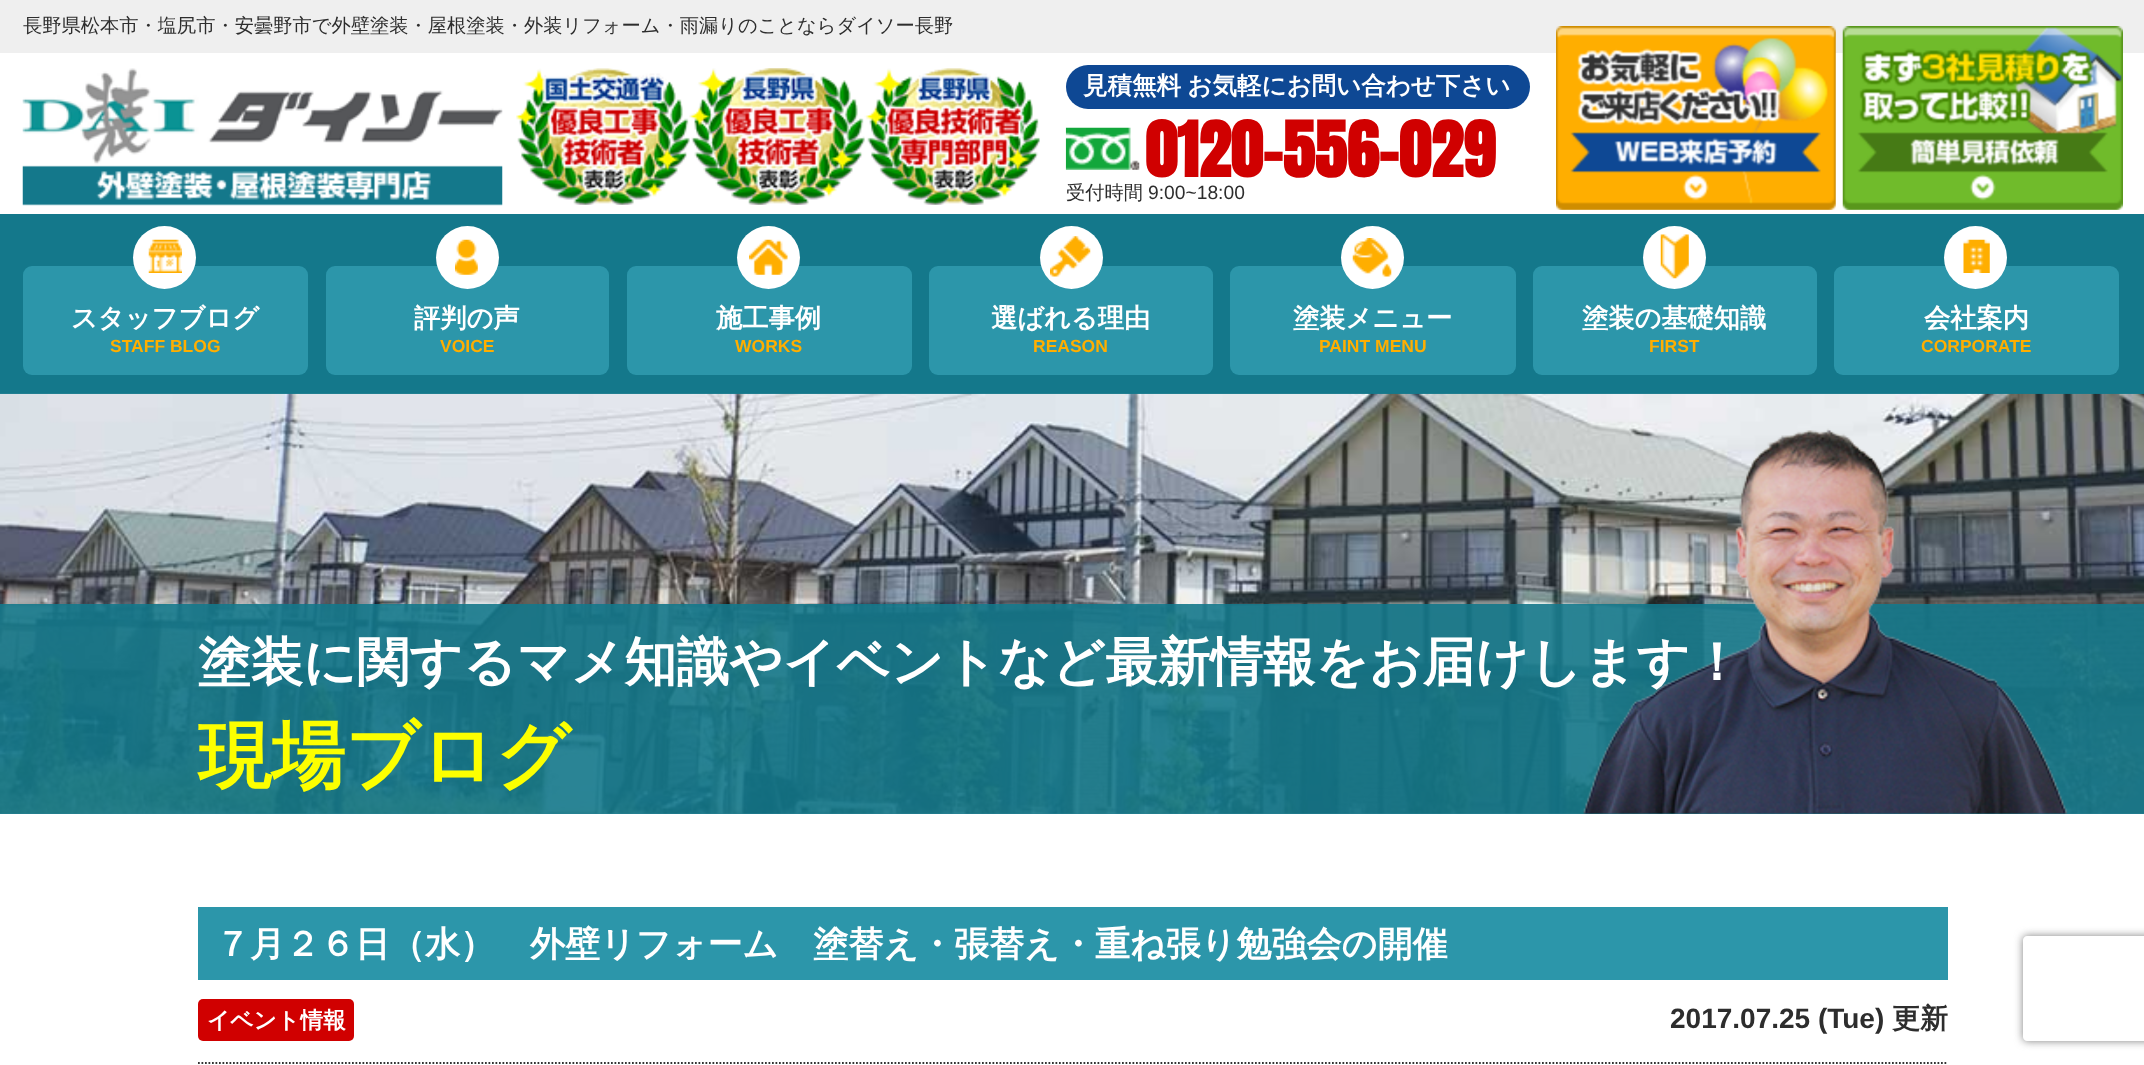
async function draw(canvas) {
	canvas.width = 2144;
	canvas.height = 1065;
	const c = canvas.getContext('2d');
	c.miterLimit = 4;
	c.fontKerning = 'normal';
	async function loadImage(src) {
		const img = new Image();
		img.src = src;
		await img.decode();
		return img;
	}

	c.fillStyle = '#fff';
	c.fillRect(0, 0, 2144, 1065);
	c.fillStyle = '#efefef';
	c.fillRect(0, 0, 2144, 53);
	c.font = '500 19.25px WenQuanYi Zen Hei';
	c.fillStyle = '#2d2d2d';
	c.fillText('長野県松本市・塩尻市・安曇野市で外壁塗装・屋根塗装・外装リフォーム・雨漏りのことならダイソー長野', 23, 32);
	c.drawImage(await loadImage('img1.png'), 22, 68, 481, 138);
	c.drawImage(await loadImage('img2.png'), 516, 68, 524, 137);
	c.fillStyle = '#0e4894';
	c.beginPath();
	c.roundRect(1066, 65, 464, 44, 22);
	c.fill();
	c.wordSpacing = '-1px';
	c.font = 'bold 24.5px WenQuanYi Zen Hei';
	c.fillStyle = '#fff';
	c.fillText('見積無料 お気軽にお問い合わせ下さい', 1083, 94);
	c.drawImage(await loadImage('img3.png'), 1065, 127, 75, 43);
	c.wordSpacing = '0px';
	c.font = 'bold 64.75px Anton';
	c.fillStyle = '#d00000';
	c.fillText('0120-556-029', 1145, 177);
	c.font = '500 19.25px WenQuanYi Zen Hei';
	c.fillStyle = '#2d2d2d';
	c.fillText('受付時間', 1066, 199);
	c.font = '19.25px Liberation Sans';
	c.fillText('9:00~18:00', 1148, 199);
	c.drawImage(await loadImage('img4.png'), 1556, 26, 280, 184);
	c.drawImage(await loadImage('img5.png'), 1842, 26, 281, 184);
	c.fillStyle = '#14788b';
	c.fillRect(0, 214, 2144, 180);
	c.fillStyle = '#2c96aa';
	c.beginPath();
	c.roundRect(23, 266, 285, 109, 9);
	c.fill();
	c.fillStyle = '#fff';
	c.beginPath();
	c.arc(164.5, 257.5, 31.5, 0, 2 * Math.PI);
	c.fill();
	c.drawImage(await loadImage('img6.png'), 148, 239, 34, 34);
	c.font = 'bold 26.25px WenQuanYi Zen Hei';
	c.fillText('スタッフブログ', 71, 327);
	c.font = 'bold 17.5px Liberation Sans';
	c.fillStyle = '#ffae00';
	c.fillText('STAFF BLOG', 110, 352);
	c.fillStyle = '#2c96aa';
	c.beginPath();
	c.roundRect(326, 266, 283, 109, 9);
	c.fill();
	c.fillStyle = '#fff';
	c.beginPath();
	c.arc(467.5, 257.5, 31.5, 0, 2 * Math.PI);
	c.fill();
	c.drawImage(await loadImage('img7.png'), 455, 239, 23, 36);
	c.font = 'bold 26.25px WenQuanYi Zen Hei';
	c.fillText('評判の声', 414, 327);
	c.font = 'bold 17.5px Liberation Sans';
	c.fillStyle = '#ffae00';
	c.fillText('VOICE', 440, 352);
	c.fillStyle = '#2c96aa';
	c.beginPath();
	c.roundRect(627, 266, 285, 109, 9);
	c.fill();
	c.fillStyle = '#fff';
	c.beginPath();
	c.arc(768.5, 257.5, 31.5, 0, 2 * Math.PI);
	c.fill();
	c.drawImage(await loadImage('img8.png'), 749, 239, 39, 36);
	c.font = 'bold 26.25px WenQuanYi Zen Hei';
	c.fillText('施工事例', 716, 327);
	c.font = 'bold 17.5px Liberation Sans';
	c.fillStyle = '#ffae00';
	c.fillText('WORKS', 735, 352);
	c.fillStyle = '#2c96aa';
	c.beginPath();
	c.roundRect(929, 266, 284, 109, 9);
	c.fill();
	c.fillStyle = '#fff';
	c.beginPath();
	c.arc(1071.5, 257.5, 31.5, 0, 2 * Math.PI);
	c.fill();
	c.drawImage(await loadImage('img9.png'), 1050, 236, 41, 41);
	c.font = 'bold 26.25px WenQuanYi Zen Hei';
	c.fillText('選ばれる理由', 991, 327);
	c.font = 'bold 17.5px Liberation Sans';
	c.fillStyle = '#ffae00';
	c.fillText('REASON', 1033, 352);
	c.fillStyle = '#2c96aa';
	c.beginPath();
	c.roundRect(1230, 266, 286, 109, 9);
	c.fill();
	c.fillStyle = '#fff';
	c.beginPath();
	c.arc(1372.5, 257.5, 31.5, 0, 2 * Math.PI);
	c.fill();
	c.drawImage(await loadImage('img10.png'), 1352, 238, 40, 39);
	c.font = 'bold 26.25px WenQuanYi Zen Hei';
	c.fillText('塗装メニュー', 1293, 327);
	c.font = 'bold 17.5px Liberation Sans';
	c.fillStyle = '#ffae00';
	c.fillText('PAINT MENU', 1319, 352);
	c.fillStyle = '#2c96aa';
	c.beginPath();
	c.roundRect(1533, 266, 284, 109, 9);
	c.fill();
	c.fillStyle = '#fff';
	c.beginPath();
	c.arc(1674.5, 257.5, 31.5, 0, 2 * Math.PI);
	c.fill();
	c.drawImage(await loadImage('img11.png'), 1660, 234, 29, 45);
	c.font = 'bold 26.25px WenQuanYi Zen Hei';
	c.fillText('塗装の基礎知識', 1582, 327);
	c.font = 'bold 17.5px Liberation Sans';
	c.fillStyle = '#ffae00';
	c.fillText('FIRST', 1649, 352);
	c.fillStyle = '#2c96aa';
	c.beginPath();
	c.roundRect(1834, 266, 285, 109, 9);
	c.fill();
	c.fillStyle = '#fff';
	c.beginPath();
	c.arc(1975.5, 257.5, 31.5, 0, 2 * Math.PI);
	c.fill();
	c.drawImage(await loadImage('img12.png'), 1963, 239, 27, 34);
	c.font = 'bold 26.25px WenQuanYi Zen Hei';
	c.fillText('会社案内', 1924, 327);
	c.font = 'bold 17.5px Liberation Sans';
	c.fillStyle = '#ffae00';
	c.fillText('CORPORATE', 1921, 352);
	c.fillStyle = '#d5dcf1';
	c.fillRect(0, 813, 2144, 1);
	c.drawImage(await loadImage('img13.png'), 0, 393, 2144, 421);
	c.fillStyle = '#14788be6';
	c.fillRect(0, 604, 2144, 210);
	c.drawImage(await loadImage('img14.png'), 1583, 428, 485, 386);
	c.font = 'bold 52.5px WenQuanYi Zen Hei';
	c.fillStyle = '#fff';
	c.fillText('塗装に関するマメ知識やイベントなど最新情報をお届けします！', 198, 680);
	c.font = 'bold 73.5px WenQuanYi Zen Hei';
	c.fillStyle = '#fcff00';
	c.fillText('現場ブログ', 198, 781);
	c.fillStyle = '#2c96aa';
	c.fillRect(198, 907, 1750, 73);
	c.font = 'bold 35px WenQuanYi Zen Hei';
	c.fillStyle = '#fff';
	c.fillText('７月２６日（水）　外壁リフォーム　塗替え・張替え・重ね張り勉強会の開催', 215, 956);
	c.beginPath();
	c.moveTo(198, 1063);
	c.lineTo(1948, 1063);
	c.strokeStyle = '#333';
	c.lineWidth = 1.8;
	c.setLineDash([1.75, 1.75]);
	c.stroke();
	c.fillStyle = '#d00000';
	c.beginPath();
	c.roundRect(198, 999, 156, 42, 5);
	c.fill();
	c.font = 'bold 22.75px WenQuanYi Zen Hei';
	c.fillStyle = '#fff';
	c.fillText('イベント情報', 207, 1028);
	c.font = 'bold 28px Liberation Sans';
	c.fillStyle = '#2d2d2d';
	c.fillText('2017.07.25 (Tue)', 1670, 1028);
	c.font = 'bold 28px WenQuanYi Zen Hei';
	c.fillText('更新', 1892, 1028);
	c.save();
	c.beginPath();
	c.moveTo(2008, 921);
	c.lineTo(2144, 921);
	c.lineTo(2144, 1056);
	c.lineTo(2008, 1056);
	c.closePath();
	c.moveTo(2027, 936);
	c.lineTo(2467, 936);
	c.bezierCurveTo(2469, 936, 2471, 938, 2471, 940);
	c.lineTo(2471, 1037);
	c.bezierCurveTo(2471, 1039, 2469, 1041, 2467, 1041);
	c.lineTo(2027, 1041);
	c.bezierCurveTo(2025, 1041, 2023, 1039, 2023, 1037);
	c.lineTo(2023, 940);
	c.bezierCurveTo(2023, 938, 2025, 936, 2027, 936);
	c.closePath();
	c.clip('evenodd');
	c.fillStyle = '#808080';
	c.filter = 'blur(4.5px)';
	c.beginPath();
	c.roundRect(2023, 936, 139, 105, 4);
	c.fill();
	c.filter = 'none';
	c.restore();
}

draw(document.querySelector('canvas'));
